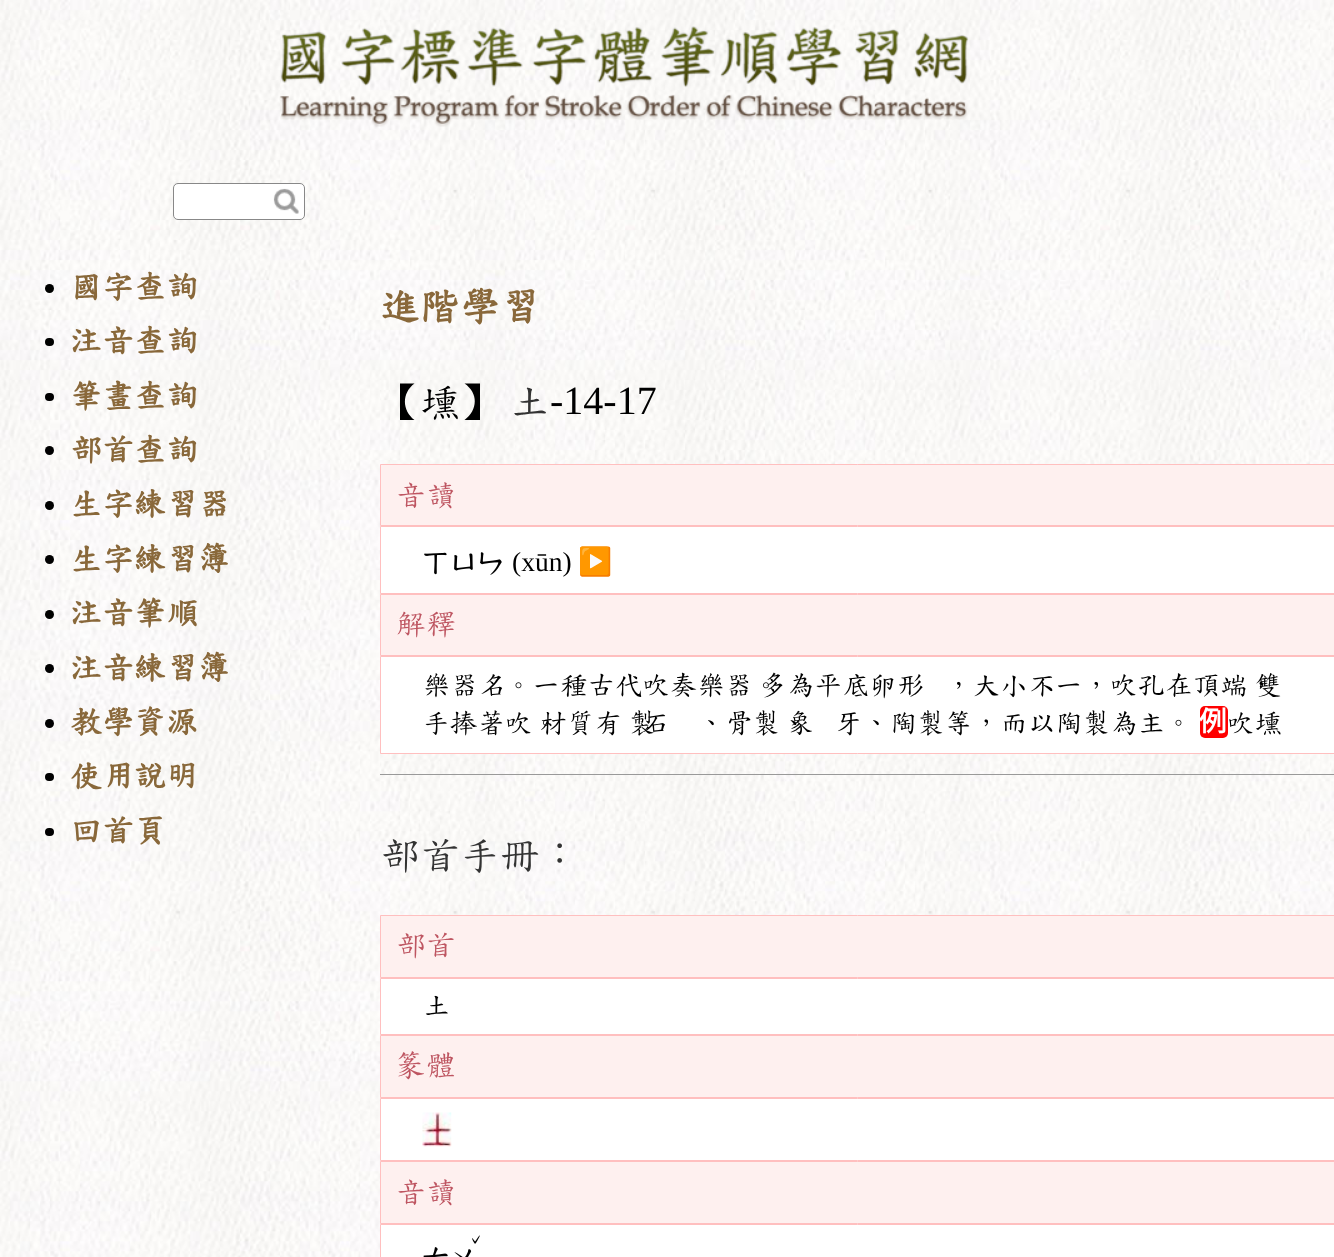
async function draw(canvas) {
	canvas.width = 1334;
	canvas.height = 1257;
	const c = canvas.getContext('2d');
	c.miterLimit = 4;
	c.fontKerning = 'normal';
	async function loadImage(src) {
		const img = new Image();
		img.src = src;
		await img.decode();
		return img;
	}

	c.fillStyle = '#fff';
	c.fillRect(0, 0, 1334, 1257);
	c.drawImage(await loadImage('img1.png'), 0, 0, 1334, 1257);
	c.drawImage(await loadImage('img2.png'), 279, 26, 690, 101);
	c.beginPath();
	c.roundRect(173.5, 183.5, 131, 36, 4.5);
	c.fill();
	c.strokeStyle = '#888';
	c.stroke();
	c.drawImage(await loadImage('img3.png'), 273, 188, 26, 26);
	c.fillStyle = '#000';
	c.beginPath();
	c.arc(49.5, 288.5, 4.5, 0, 2 * Math.PI);
	c.fill();
	c.font = 'bold 32px "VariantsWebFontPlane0"';
	c.fillStyle = '#89683a';
	c.fillText('國字查詢', 70, 296);
	c.fillStyle = '#000';
	c.beginPath();
	c.roundRect(45, 338, 9, 8, 4);
	c.fill();
	c.fillStyle = '#89683a';
	c.fillText('注音查詢', 70, 350);
	c.fillStyle = '#000';
	c.beginPath();
	c.roundRect(45, 393, 9, 8, 4);
	c.fill();
	c.fillStyle = '#89683a';
	c.fillText('筆畫查詢', 70, 405);
	c.fillStyle = '#000';
	c.beginPath();
	c.arc(49.5, 450.5, 4.5, 0, 2 * Math.PI);
	c.fill();
	c.fillStyle = '#89683a';
	c.fillText('部首查詢', 70, 459);
	c.fillStyle = '#000';
	c.beginPath();
	c.arc(49.5, 505.5, 4.5, 0, 2 * Math.PI);
	c.fill();
	c.fillStyle = '#89683a';
	c.fillText('生字練習器', 70, 513);
	c.fillStyle = '#000';
	c.beginPath();
	c.arc(49.5, 559.5, 4.5, 0, 2 * Math.PI);
	c.fill();
	c.fillStyle = '#89683a';
	c.fillText('生字練習簿', 70, 568);
	c.fillStyle = '#000';
	c.beginPath();
	c.arc(49.5, 614.5, 4.5, 0, 2 * Math.PI);
	c.fill();
	c.fillStyle = '#89683a';
	c.fillText('注音筆順', 70, 622);
	c.fillStyle = '#000';
	c.beginPath();
	c.arc(49.5, 668.5, 4.5, 0, 2 * Math.PI);
	c.fill();
	c.fillStyle = '#89683a';
	c.fillText('注音練習簿', 70, 677);
	c.fillStyle = '#000';
	c.beginPath();
	c.arc(49.5, 723.5, 4.5, 0, 2 * Math.PI);
	c.fill();
	c.fillStyle = '#89683a';
	c.fillText('教學資源', 70, 731);
	c.fillStyle = '#000';
	c.beginPath();
	c.roundRect(45, 773, 9, 8, 4);
	c.fill();
	c.fillStyle = '#89683a';
	c.fillText('使用說明', 70, 785);
	c.fillStyle = '#000';
	c.beginPath();
	c.roundRect(45, 828, 9, 8, 4);
	c.fill();
	c.fillStyle = '#89683a';
	c.fillText('回首頁', 70, 840);
	c.font = 'bold 40px "VariantsWebFontPlane0"';
	c.fillText('進階學習', 380, 318);
	c.font = '40px "VariantsWebFontPlane0"';
	c.fillStyle = '#000';
	c.fillText('壎', 420, 414);
	c.beginPath();
	c.moveTo(400, 383.5);
	c.lineTo(414.5, 383.5);
	c.bezierCurveTo(401.5, 393, 402, 410.5, 414.5, 420);
	c.lineTo(400, 420);
	c.closePath();
	c.fill();
	c.beginPath();
	c.moveTo(464.5, 383.5);
	c.lineTo(480, 383.5);
	c.lineTo(480, 420);
	c.lineTo(464.5, 420);
	c.bezierCurveTo(478, 410, 478.5, 393, 464.5, 383.5);
	c.closePath();
	c.fill();
	c.fillStyle = '#333';
	c.fillText('土', 510, 414);
	c.font = '40px Liberation Serif';
	c.fillStyle = '#000';
	c.fillText('-14-17', 550, 414);
	c.fillStyle = '#fef0ef';
	c.beginPath();
	c.rect(380.5, 464.5, 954, 61);
	c.fill();
	c.strokeStyle = '#ffbfbf';
	c.stroke();
	c.font = '30px "VariantsWebFontPlane0"';
	c.fillStyle = '#be5561';
	c.fillText('音讀', 396, 504);
	c.fillStyle = '#fff';
	c.beginPath();
	c.rect(380.5, 526.5, 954, 67);
	c.fill();
	c.stroke();
	c.drawImage(await loadImage('img4.png'), 424, 552, 78, 23);
	c.font = '27.5px Liberation Serif';
	c.fillStyle = '#000';
	c.fillText('(xūn)', 512, 571);
	c.font = '27.5px Noto Color Emoji';
	c.fillStyle = '#333';
	c.fillText('▶️', 578, 571);
	c.fillStyle = '#fef0ef';
	c.beginPath();
	c.rect(380.5, 594.5, 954, 61);
	c.fill();
	c.stroke();
	c.font = '30px "VariantsWebFontPlane0"';
	c.fillStyle = '#be5561';
	c.fillText('解釋', 396, 633);
	c.fillStyle = '#fff';
	c.beginPath();
	c.rect(380.5, 656.5, 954, 97);
	c.fill();
	c.stroke();
	c.font = '27.5px "VariantsWebFontPlane0"';
	c.fillStyle = '#000';
	c.fillText('樂器名', 423, 693);
	c.drawImage(await loadImage('img8.png'), 763, 682, 6, 7);
	c.fillText('種古代吹奏樂器 多為平底卵形', 560, 693);
	c.drawImage(await loadImage('img5.png'), 957, 675, 68, 23);
	c.fillText('不', 1028, 693);
	c.drawImage(await loadImage('img6.png'), 1058, 681, 40, 8);
	c.drawImage(await loadImage('img9.png'), 1259, 681, 4, 8);
	c.fillText('吹孔在頂端 雙', 1110, 693);
	c.drawImage(await loadImage('img7.png'), 515, 682, 42, 7);
	c.drawImage(await loadImage('img10.png'), 425, 711, 22, 24);
	c.drawImage(await loadImage('img13.png'), 543, 719, 6, 7);
	c.drawImage(await loadImage('img14.png'), 643, 714, 23, 19);
	c.fillText('捧著吹 材質有 製', 450, 731);
	c.drawImage(await loadImage('img11.png'), 708, 711, 43, 25);
	c.drawImage(await loadImage('img15.png'), 790, 720, 7, 6);
	c.fillText('製 象', 753, 731);
	c.drawImage(await loadImage('img12.png'), 838, 712, 41, 24);
	c.fillText('陶製等', 890, 731);
	c.fillText('以陶製為主', 1028, 731);
	c.fillStyle = '#f00';
	c.beginPath();
	c.roundRect(1200, 706, 28, 32, 5);
	c.fill();
	c.font = 'bold 27.5px Noto Sans CJK TC';
	c.fillStyle = '#fff';
	c.fillText('例', 1199, 731);
	c.font = '27.5px "VariantsWebFontPlane0"';
	c.fillStyle = '#000';
	c.fillText('吹壎', 1227, 731);
	c.drawImage(await loadImage('img16.png'), 984, 714, 40, 20);
	c.drawImage(await loadImage('img17.png'), 1175, 719, 7, 7);
	c.fillStyle = '#999';
	c.fillRect(380, 774, 954, 1);
	c.font = '40px "VariantsWebFontPlane0"';
	c.fillStyle = '#333';
	c.fillText('部', 380, 867);
	c.drawImage(await loadImage('img18.png'), 423, 839, 73, 34);
	c.fillText('冊', 500, 867);
	c.drawImage(await loadImage('img19.png'), 557, 843, 5, 20);
	c.fillStyle = '#fef0ef';
	c.beginPath();
	c.rect(380.5, 915.5, 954, 62);
	c.fill();
	c.stroke();
	c.font = '30px "VariantsWebFontPlane0"';
	c.fillStyle = '#be5561';
	c.fillText('部首', 396, 954);
	c.fillStyle = '#fff';
	c.beginPath();
	c.rect(380.5, 978.5, 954, 56);
	c.fill();
	c.stroke();
	c.font = '27.5px "VariantsWebFontPlane0"';
	c.fillStyle = '#000';
	c.fillText('土', 423, 1014);
	c.fillStyle = '#fef0ef';
	c.beginPath();
	c.rect(380.5, 1035.5, 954, 62);
	c.fill();
	c.stroke();
	c.font = '30px "VariantsWebFontPlane0"';
	c.fillStyle = '#be5561';
	c.fillText('篆體', 396, 1074);
	c.fillStyle = '#fff';
	c.beginPath();
	c.rect(380.5, 1098.5, 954, 62);
	c.fill();
	c.stroke();
	c.drawImage(await loadImage('img20.png'), 422, 1112, 30, 35);
	c.fillStyle = '#fef0ef';
	c.beginPath();
	c.rect(380.5, 1161.5, 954, 62);
	c.fill();
	c.stroke();
	c.fillStyle = '#be5561';
	c.fillText('音讀', 396, 1201);
	c.fillStyle = '#fff';
	c.beginPath();
	c.rect(380.5, 1224.5, 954, 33);
	c.fill();
	c.stroke();
	c.drawImage(await loadImage('img21.png'), 472, 1235, 8, 9);
	c.drawImage(await loadImage('img22.png'), 423, 1247, 49, 10);
}

draw(document.querySelector('canvas'));
